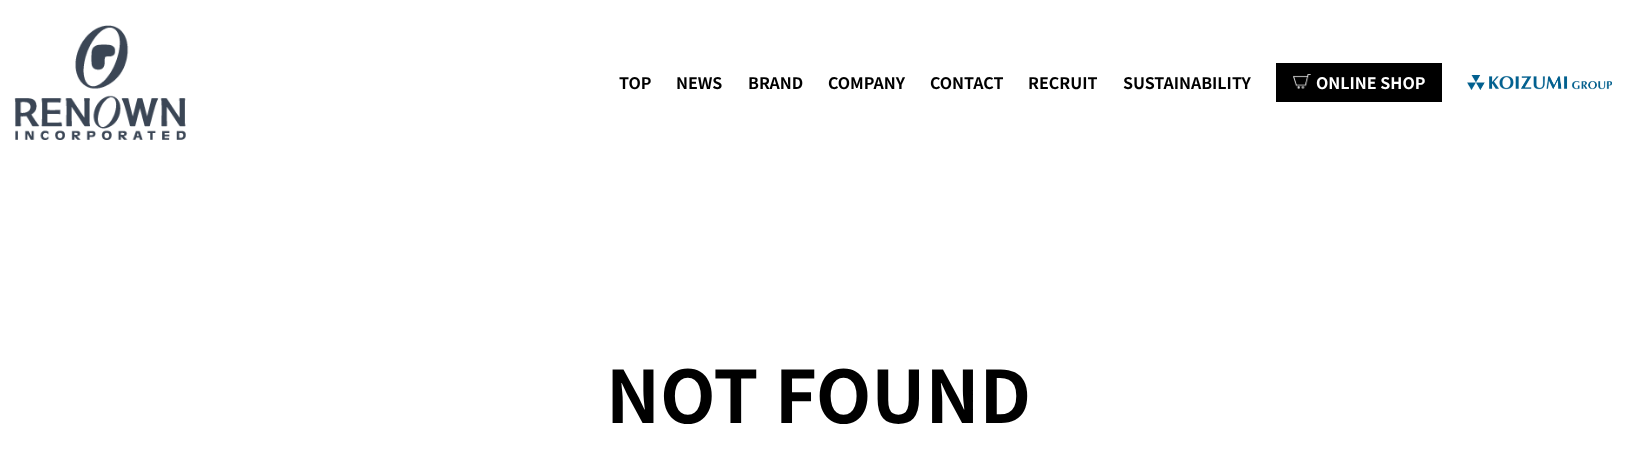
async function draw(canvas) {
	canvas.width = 1637;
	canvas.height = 450;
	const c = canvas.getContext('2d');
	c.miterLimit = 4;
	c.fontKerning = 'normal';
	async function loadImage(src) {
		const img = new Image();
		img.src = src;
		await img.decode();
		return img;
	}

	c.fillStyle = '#fff';
	c.fillRect(0, 0, 1637, 450);
	c.drawImage(await loadImage('img1.png'), 14, 25, 172, 115);
	c.font = 'bold 16px Noto Sans JP';
	c.fillStyle = '#000';
	for (const [text, x, y] of [
		['TOP', 619, 89],
		['NEWS', 676, 89],
		['BRAND', 748, 89],
		['COMPANY', 828, 89],
		['CONTACT', 930, 89],
		['RECRUIT', 1028, 89],
		['SUSTAINABILITY', 1123, 89],
	]) {
		c.fillText(text, x, y);
	}
	c.fillRect(1276, 63, 166, 39);
	c.drawImage(await loadImage('img2.png'), 1293, 74, 18, 15);
	c.fillStyle = '#fff';
	c.fillText('ONLINE SHOP', 1316, 89);
	c.drawImage(await loadImage('img3.png'), 1467, 75, 145, 15);
	c.font = 'bold 72.25px Noto Sans JP';
	c.fillStyle = '#000';
	c.fillText('NOT FOUND', 606, 423);
}

draw(document.querySelector('canvas'));
